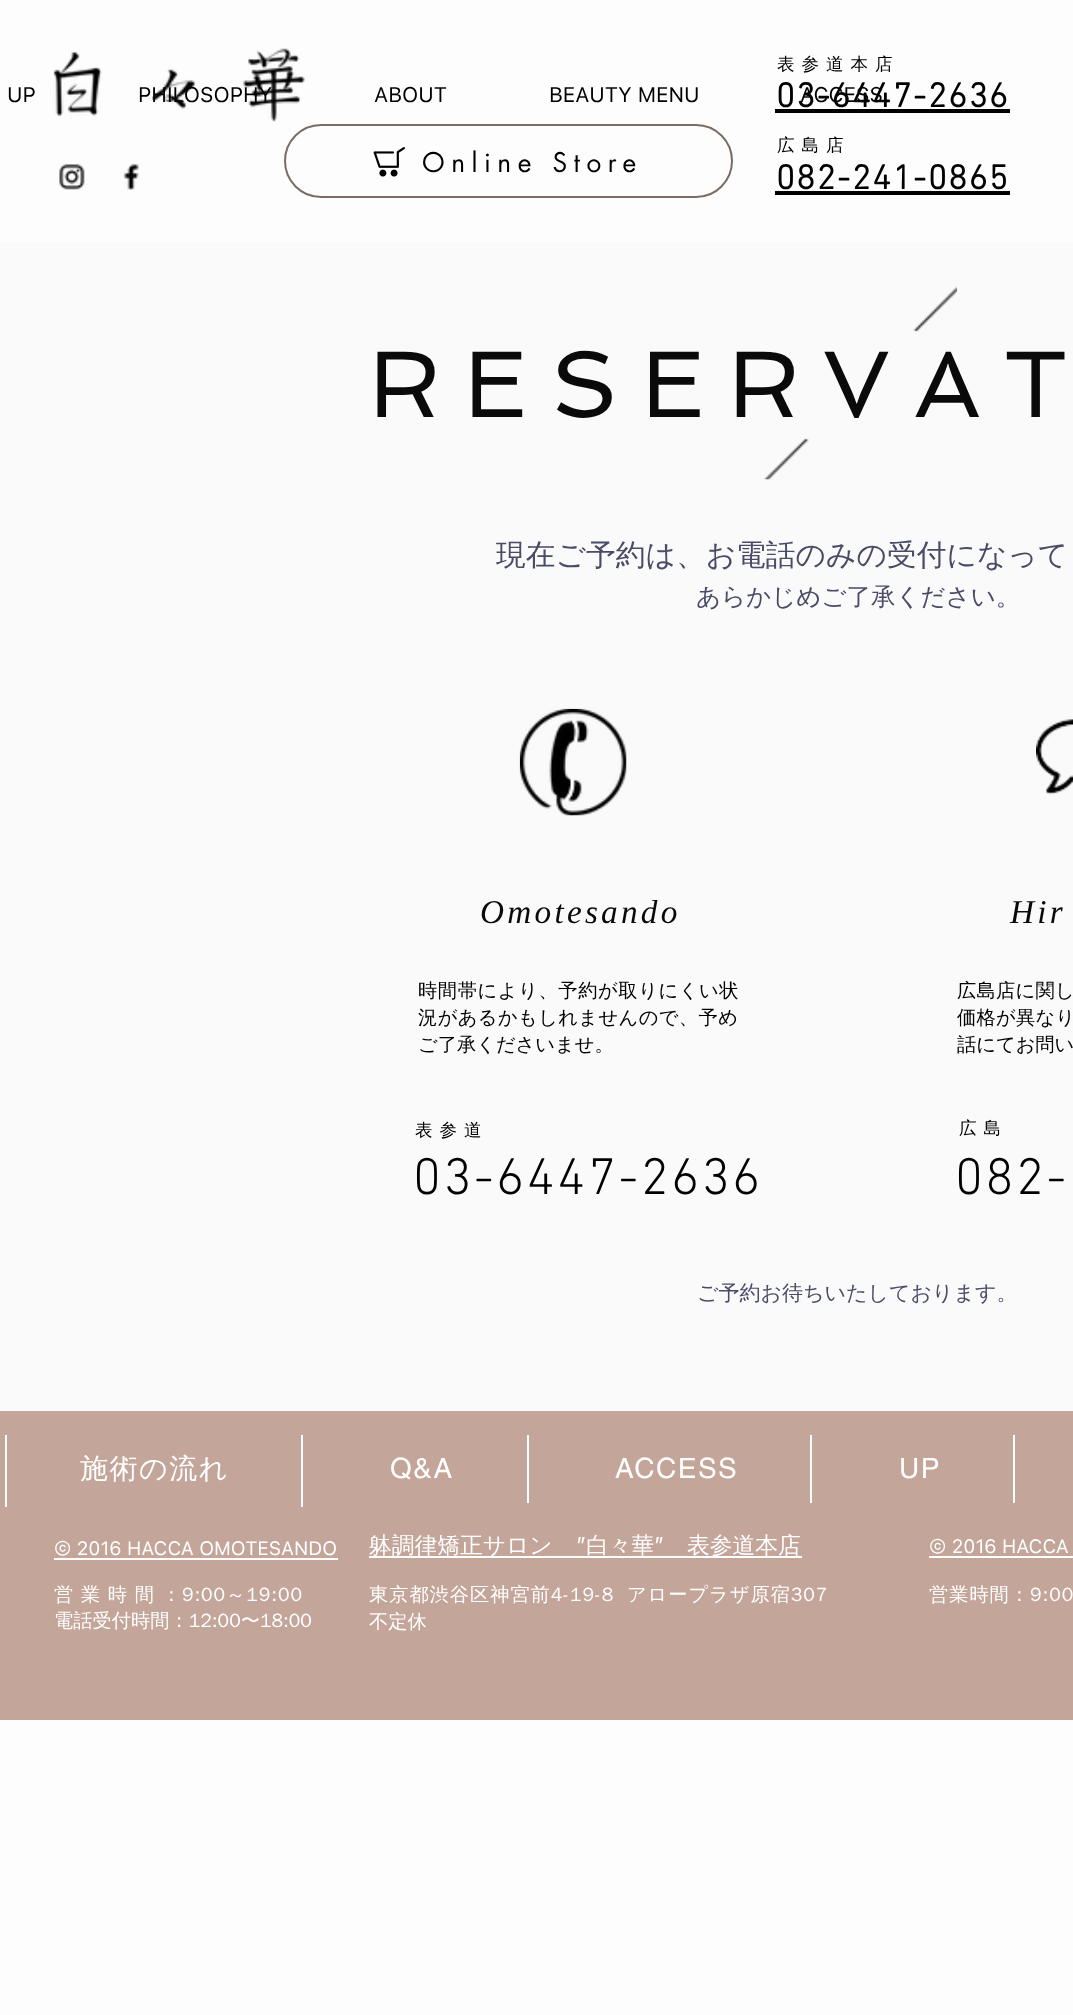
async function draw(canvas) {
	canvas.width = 1073;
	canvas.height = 2015;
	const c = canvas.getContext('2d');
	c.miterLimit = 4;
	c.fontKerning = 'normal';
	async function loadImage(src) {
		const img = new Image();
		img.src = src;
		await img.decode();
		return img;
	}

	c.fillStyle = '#fefdfe';
	c.fillRect(0, 0, 1073, 2015);
	c.drawImage(await loadImage('img1.png'), 53, 48, 252, 74);
	c.drawImage(await loadImage('img2.png'), 59, 164, 26, 26);
	c.drawImage(await loadImage('img3.png'), 123, 164, 16, 26);
	c.letterSpacing = '7px';
	c.font = '500 17.5px WenQuanYi Zen Hei';
	c.fillStyle = '#000';
	c.fillText('表参道本店', 777, 70);
	c.letterSpacing = '1.75px';
	c.font = 'bold 35px "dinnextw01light"';
	c.fillText('03-6447-2636', 776, 107);
	c.fillRect(775, 109, 235, 4);
	c.letterSpacing = '7px';
	c.font = '500 17.5px WenQuanYi Zen Hei';
	c.fillText('広島店', 777, 151);
	c.beginPath();
	c.roundRect(285, 125, 447, 72, 36);
	c.strokeStyle = '#796c65';
	c.lineWidth = 2;
	c.stroke();
	c.drawImage(await loadImage('img4.png'), 373, 147, 32, 30);
	c.letterSpacing = '6.5px';
	c.font = '26.25px futura';
	c.fillText('Online Store', 422, 172);
	c.letterSpacing = '1.75px';
	c.font = 'bold 35px "dinnextw01light"';
	c.fillText('082-241-0865', 776, 189);
	c.fillRect(775, 191, 235, 4);
	c.letterSpacing = '0px';
	c.font = '21px SF';
	for (const [text, x, y] of [
		['UP', 7, 102],
		['PHILOSOPHY', 138, 102],
		['ABOUT', 374, 102],
		['BEAUTY MENU', 549, 102],
		['ACCESS', 800, 102],
	]) {
		c.fillText(text, x, y);
	}
	c.fillStyle = '#fafafa';
	c.fillRect(0, 242, 1073, 1169);
	c.drawImage(await loadImage('img5.png'), 764, 286, 194, 194);
	c.letterSpacing = '23.5px';
	c.font = '94.5px Spinnaker';
	c.fillStyle = '#0a0a0a';
	c.fillText('RESERVAT', 369, 417);
	c.letterSpacing = '0px';
	c.font = '500 29.75px WenQuanYi Zen Hei';
	c.fillStyle = '#4a4c67';
	c.fillText('現在ご予約は、お電話のみの受付になって', 496, 565);
	c.font = '500 24.5px WenQuanYi Zen Hei';
	c.fillText('あらかじめご了承ください。', 696, 605);
	c.drawImage(await loadImage('img6.png'), 519, 708, 108, 108);
	c.drawImage(await loadImage('img7.png'), 1036, 719, 37, 76);
	c.letterSpacing = '3.25px';
	c.font = 'italic 33.25px Liberation Serif';
	c.fillStyle = '#0a0a0a';
	c.fillText('Omotesando', 480, 923);
	c.fillText('Hir', 1010, 923);
	c.letterSpacing = '0.6px';
	c.font = '500 19.25px WenQuanYi Zen Hei';
	c.fillStyle = '#000';
	c.fillText('時間帯により、予約が取りにくい状', 418, 997);
	c.letterSpacing = '0.4px';
	c.fillText('況があるかもしれませんので、予め', 418, 1024);
	c.letterSpacing = '0px';
	c.fillText('ご了承くださいませ。', 418, 1051);
	c.letterSpacing = '0.25px';
	c.fillText('広島店に関し', 957, 997);
	c.fillText('価格が異なり', 957, 1024);
	c.letterSpacing = '0px';
	c.fillText('話にてお問い', 957, 1051);
	c.letterSpacing = '7px';
	c.font = '500 17.5px WenQuanYi Zen Hei';
	c.fillText('表参道', 415, 1136);
	c.letterSpacing = '2.6px';
	c.font = '300 52.5px "dinnextw01light"';
	c.fillText('03-6447-2636', 413, 1194);
	c.letterSpacing = '7px';
	c.font = '500 17.5px WenQuanYi Zen Hei';
	c.fillText('広島', 959, 1134);
	c.letterSpacing = '2.6px';
	c.font = '300 52.5px "dinnextw01light"';
	c.fillText('082-', 955, 1194);
	c.letterSpacing = '0px';
	c.font = '500 21px WenQuanYi Zen Hei';
	c.fillStyle = '#4a4c67';
	c.fillText('ご予約お待ちいたしております。', 697, 1300);
	for (const [x, y, w, h, color] of [
		[0, 1411, 1073, 309, '#c3a59a'],
		[5, 1435, 2, 72, '#fefdfe'],
		[301, 1435, 2, 72, '#fff'],
	]) {
		c.fillStyle = color;
		c.fillRect(x, y, w, h);
	}
	c.letterSpacing = '1.5px';
	c.font = '500 28px WenQuanYi Zen Hei';
	c.fillText('施術の流れ', 80, 1478);
	c.fillRect(527, 1435, 2, 68);
	c.font = '28px helvetica';
	c.fillText('Q&A', 390, 1478);
	c.fillRect(810, 1435, 2, 68);
	c.fillText('ACCESS', 615, 1478);
	c.fillRect(1013, 1435, 2, 68);
	c.fillText('UP', 899, 1478);
	c.letterSpacing = '0px';
	c.font = '19.25px SF';
	c.fillText('© 2016 HACCA OMOTESANDO', 54, 1555);
	c.fillRect(54, 1558, 284, 2);
	c.fillRect(369, 1556, 433, 2);
	c.font = '500 22.75px WenQuanYi Zen Hei';
	c.fillText('躰調律矯正サロン', 369, 1553);
	c.font = '22.75px SF';
	c.fillText('”', 576, 1553);
	c.font = '500 22.75px WenQuanYi Zen Hei';
	c.fillText('白々華', 586, 1553);
	c.font = '22.75px SF';
	c.fillText('”', 654, 1553);
	c.font = '500 22.75px WenQuanYi Zen Hei';
	c.fillText('表参道本店', 687, 1553);
	c.font = '19.25px SF';
	c.fillText('© 2016 HACCA', 929, 1553);
	c.fillRect(929, 1556, 144, 2);
	c.letterSpacing = '0.95px';
	c.font = '500 19.25px WenQuanYi Zen Hei';
	c.fillText('営 業 時 間 ：9:00～19:00', 54, 1601);
	c.letterSpacing = '0px';
	c.fillText('電話受付時間：12:00〜18:00', 54, 1627);
	c.letterSpacing = '0.95px';
	c.wordSpacing = '6px';
	c.fillText('東京都渋谷区神宮前4-19-8 アロープラザ原宿307', 369, 1601);
	c.wordSpacing = '0px';
	c.fillText('営業時間：9:00', 929, 1601);
	c.letterSpacing = '0px';
	c.fillText('不定休', 369, 1628);
}

draw(document.querySelector('canvas'));
